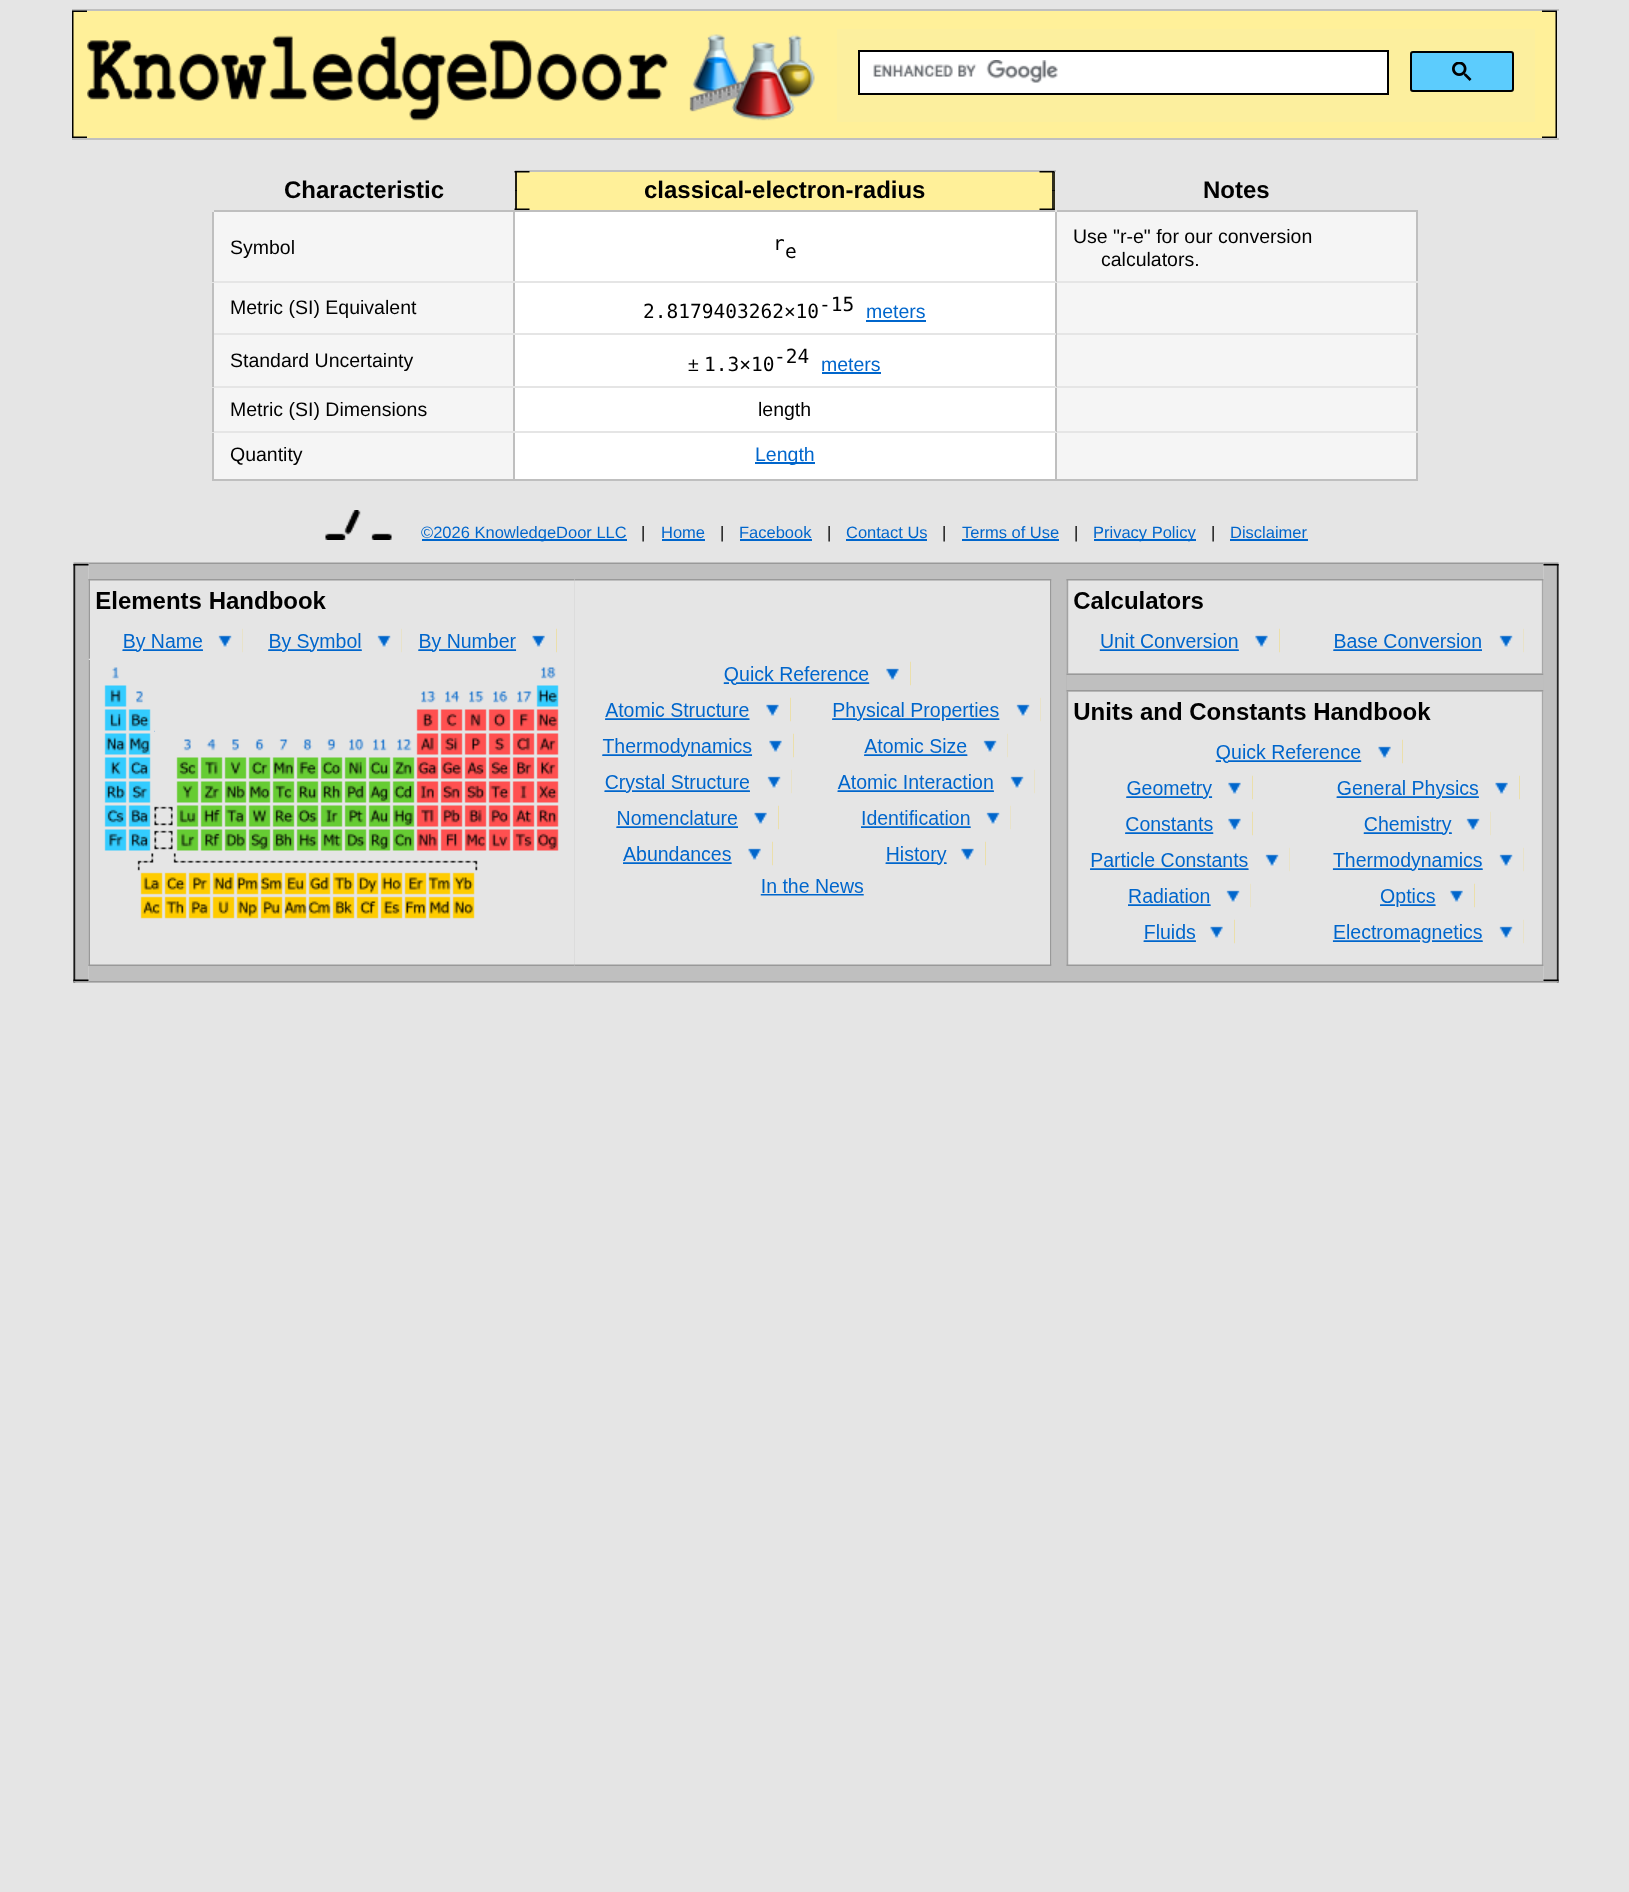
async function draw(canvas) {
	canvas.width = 1629;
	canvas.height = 1892;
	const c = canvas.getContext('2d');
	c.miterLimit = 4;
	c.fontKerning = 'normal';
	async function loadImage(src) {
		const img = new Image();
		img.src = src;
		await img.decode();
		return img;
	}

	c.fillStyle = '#e5e5e5';
	c.fillRect(0, 0, 1629, 1892);
	c.fillStyle = '#fff099';
	c.fillRect(73, 11, 1483, 127);
	c.drawImage(await loadImage('img1.png'), 1555, 12, 2, 63);
	c.fillStyle = '#bfbfbf';
	c.fillRect(72, 9, 1487, 2);
	c.drawImage(await loadImage('img2.png'), 1542, 10, 15, 2);
	c.drawImage(await loadImage('img3.png'), 72, 12, 2, 63);
	c.drawImage(await loadImage('img2.png'), 72, 10, 15, 2);
	c.drawImage(await loadImage('img4.png'), 87, 34, 728, 87);
	c.fillStyle = '#fcef9e';
	c.fillRect(837, 29, 698, 93);
	c.fillStyle = '#fff';
	c.beginPath();
	c.rect(859, 51, 529, 43);
	c.fill();
	c.strokeStyle = '#000';
	c.lineWidth = 2;
	c.stroke();
	c.drawImage(await loadImage('img5.png'), 873, 60, 185, 23);
	c.fillStyle = '#5cccfd';
	c.beginPath();
	c.roundRect(1411, 52, 102, 39, 2);
	c.fill();
	c.stroke();
	c.drawImage(await loadImage('img6.png'), 1452, 62, 20, 19);
	c.drawImage(await loadImage('img3.png'), 72, 75, 2, 63);
	c.fillStyle = '#bfbfbf';
	c.fillRect(822, 138, 737, 2);
	c.fillRect(72, 138, 752, 2);
	c.drawImage(await loadImage('img7.png'), 73, 136, 14, 2);
	c.drawImage(await loadImage('img1.png'), 1555, 75, 2, 63);
	c.drawImage(await loadImage('img8.png'), 1542, 136, 14, 2);
	for (const [x, y, w, h, color] of [
		[1040, 172, 12, 37, '#fff099'],
		[1052, 171, 3, 41, '#302e1d'],
		[1052, 190, 3, 1, '#090906'],
		[515, 171, 2, 41, '#211f14'],
		[513, 170, 543, 2, '#bfbfbf'],
		[530, 172, 510, 38, '#fff099'],
	]) {
		c.fillStyle = color;
		c.fillRect(x, y, w, h);
	}
	c.drawImage(await loadImage('img9.png'), 1039, 171, 16, 2);
	for (const [x, y, w, h, color] of [
		[513, 170, 2, 2, '#e5e5e5'],
		[1416, 210, 2, 270, '#bfbfbf'],
		[1055, 479, 363, 2, '#bfbfbf'],
		[1055, 431, 2, 49, '#bfbfbf'],
		[1055, 431, 363, 2, '#e5e5e5'],
		[1055, 386, 2, 46, '#bfbfbf'],
		[1055, 386, 363, 2, '#e5e5e5'],
		[1055, 333, 2, 54, '#bfbfbf'],
		[1055, 333, 363, 2, '#e5e5e5'],
		[1055, 281, 2, 54, '#bfbfbf'],
		[1055, 281, 363, 2, '#e5e5e5'],
		[1055, 210, 2, 72, '#bfbfbf'],
		[513, 210, 543, 2, '#bfbfbf'],
		[513, 479, 543, 2, '#bfbfbf'],
		[513, 431, 2, 49, '#bfbfbf'],
		[513, 431, 543, 2, '#e5e5e5'],
		[513, 386, 2, 46, '#bfbfbf'],
		[513, 386, 543, 2, '#e5e5e5'],
		[513, 333, 2, 54, '#bfbfbf'],
		[513, 333, 543, 2, '#e5e5e5'],
		[513, 281, 2, 54, '#bfbfbf'],
		[513, 281, 543, 2, '#e5e5e5'],
		[513, 210, 2, 72, '#bfbfbf'],
		[513, 210, 2, 2, '#e5e5e5'],
		[212, 479, 303, 2, '#bfbfbf'],
		[212, 431, 2, 49, '#bfbfbf'],
		[212, 431, 303, 2, '#e5e5e5'],
		[212, 386, 2, 46, '#bfbfbf'],
		[212, 386, 303, 2, '#e5e5e5'],
		[212, 333, 2, 54, '#bfbfbf'],
		[212, 333, 303, 2, '#e5e5e5'],
		[212, 281, 2, 54, '#bfbfbf'],
		[212, 281, 303, 2, '#e5e5e5'],
		[212, 210, 2, 72, '#bfbfbf'],
		[212, 210, 303, 2, '#bfbfbf'],
		[212, 210, 2, 2, '#e5e5e5'],
	]) {
		c.fillStyle = color;
		c.fillRect(x, y, w, h);
	}
	c.font = 'bold 24px Liberation Sans';
	c.fillStyle = '#000';
	c.fillText('Characteristic', 284, 198);
	c.fillStyle = '#fff099';
	c.fillRect(517, 172, 13, 38);
	c.fillStyle = '#040403';
	c.fillRect(515, 190, 2, 1);
	c.drawImage(await loadImage('img10.png'), 514, 171, 16, 2);
	c.fillStyle = '#000';
	c.fillText('classical-electron-radius', 644, 198);
	for (const [x, y, w, h, color] of [
		[1416, 210, 2, 2, '#e5e5e5'],
		[1055, 210, 363, 2, '#bfbfbf'],
		[1055, 210, 2, 2, '#e5e5e5'],
	]) {
		c.fillStyle = color;
		c.fillRect(x, y, w, h);
	}
	c.fillStyle = '#000';
	c.fillText('Notes', 1203, 198);
	c.drawImage(await loadImage('img11.png'), 514, 208, 16, 2);
	c.drawImage(await loadImage('img12.png'), 1039, 208, 16, 2);
	c.fillStyle = '#f5f5f5';
	c.fillRect(214, 212, 299, 69);
	c.font = '19.5px Liberation Sans';
	c.fillStyle = '#000';
	c.fillText('Symbol', 230, 254);
	c.fillStyle = '#fff';
	c.fillRect(515, 212, 540, 69);
	c.font = '19.5px DejaVu Sans Mono';
	c.fillStyle = '#000';
	c.fillText('r', 773, 250);
	c.fillText('e', 785, 258);
	c.fillStyle = '#f5f5f5';
	c.fillRect(1057, 212, 359, 69);
	c.font = '19.5px Liberation Sans';
	c.fillStyle = '#000';
	c.fillText('Use "r-e" for our conversion', 1073, 243);
	c.fillText('calculators.', 1101, 266);
	c.fillStyle = '#f5f5f5';
	c.fillRect(214, 283, 299, 50);
	c.fillStyle = '#000';
	c.fillText('Metric (SI) Equivalent', 230, 314);
	c.fillStyle = '#fff';
	c.fillRect(515, 283, 540, 50);
	c.font = '19.5px DejaVu Sans Mono';
	c.fillStyle = '#000';
	c.fillText('2.8179403262×10', 643, 318);
	c.fillText('-15', 819, 311);
	c.font = '19.5px Liberation Sans';
	c.fillStyle = '#06c';
	c.fillText('meters', 866, 318);
	for (const [x, y, w, h, color] of [
		[866, 320, 60, 2, '#06c'],
		[1057, 283, 359, 50, '#f5f5f5'],
		[214, 335, 299, 51, '#f5f5f5'],
	]) {
		c.fillStyle = color;
		c.fillRect(x, y, w, h);
	}
	c.fillStyle = '#000';
	c.fillText('Standard Uncertainty', 230, 367);
	c.fillStyle = '#fff';
	c.fillRect(515, 335, 540, 51);
	c.fillStyle = '#000';
	c.fillText('±', 688, 371);
	c.font = '19.5px DejaVu Sans Mono';
	c.fillText('1.3×10', 704, 371);
	c.fillText('-24', 774, 363);
	c.font = '19.5px Liberation Sans';
	c.fillStyle = '#06c';
	c.fillText('meters', 821, 371);
	for (const [x, y, w, h, color] of [
		[822, 372, 59, 2, '#06c'],
		[1057, 335, 359, 51, '#f5f5f5'],
		[214, 388, 299, 43, '#f5f5f5'],
	]) {
		c.fillStyle = color;
		c.fillRect(x, y, w, h);
	}
	c.fillStyle = '#000';
	c.fillText('Metric (SI) Dimensions', 230, 416);
	c.fillStyle = '#fff';
	c.fillRect(515, 388, 540, 43);
	c.fillStyle = '#000';
	c.fillText('length', 758, 416);
	c.fillStyle = '#f5f5f5';
	c.fillRect(1057, 388, 359, 43);
	c.fillRect(214, 433, 299, 46);
	c.fillStyle = '#000';
	c.fillText('Quantity', 230, 461);
	c.fillStyle = '#fff';
	c.fillRect(515, 433, 540, 46);
	c.fillStyle = '#06c';
	c.fillRect(755, 462, 60, 2);
	c.fillText('Length', 755, 461);
	c.fillStyle = '#f5f5f5';
	c.fillRect(1057, 433, 359, 46);
	c.drawImage(await loadImage('img13.png'), 325, 510, 67, 30);
	c.fillStyle = '#06c';
	c.fillRect(422, 539, 205, 2);
	c.font = '16.5px Liberation Sans';
	c.fillText('©2026 KnowledgeDoor LLC', 421, 538);
	c.fillStyle = '#000';
	c.fillText('|', 641, 538);
	c.fillStyle = '#06c';
	c.fillText('Home', 661, 538);
	c.fillRect(662, 539, 43, 2);
	c.fillStyle = '#000';
	c.fillText('|', 720, 538);
	c.fillStyle = '#06c';
	c.fillText('Facebook', 739, 538);
	c.fillRect(740, 539, 72, 2);
	c.fillStyle = '#000';
	c.fillText('|', 827, 538);
	c.fillStyle = '#06c';
	c.fillText('Contact Us', 846, 538);
	c.fillRect(846, 539, 81, 2);
	c.fillStyle = '#000';
	c.fillText('|', 942, 538);
	c.fillStyle = '#06c';
	c.fillText('Terms of Use', 962, 538);
	c.fillRect(962, 539, 97, 2);
	c.fillStyle = '#000';
	c.fillText('|', 1074, 538);
	c.fillStyle = '#06c';
	c.fillRect(1094, 539, 102, 2);
	c.fillText('Privacy Policy', 1093, 538);
	c.fillStyle = '#000';
	c.fillText('|', 1211, 538);
	c.fillStyle = '#06c';
	c.fillText('Disclaimer', 1230, 538);
	c.fillRect(1230, 539, 78, 2);
	c.drawImage(await loadImage('img14.png'), 73, 562, 1486, 421);
}

draw(document.querySelector('canvas'));
